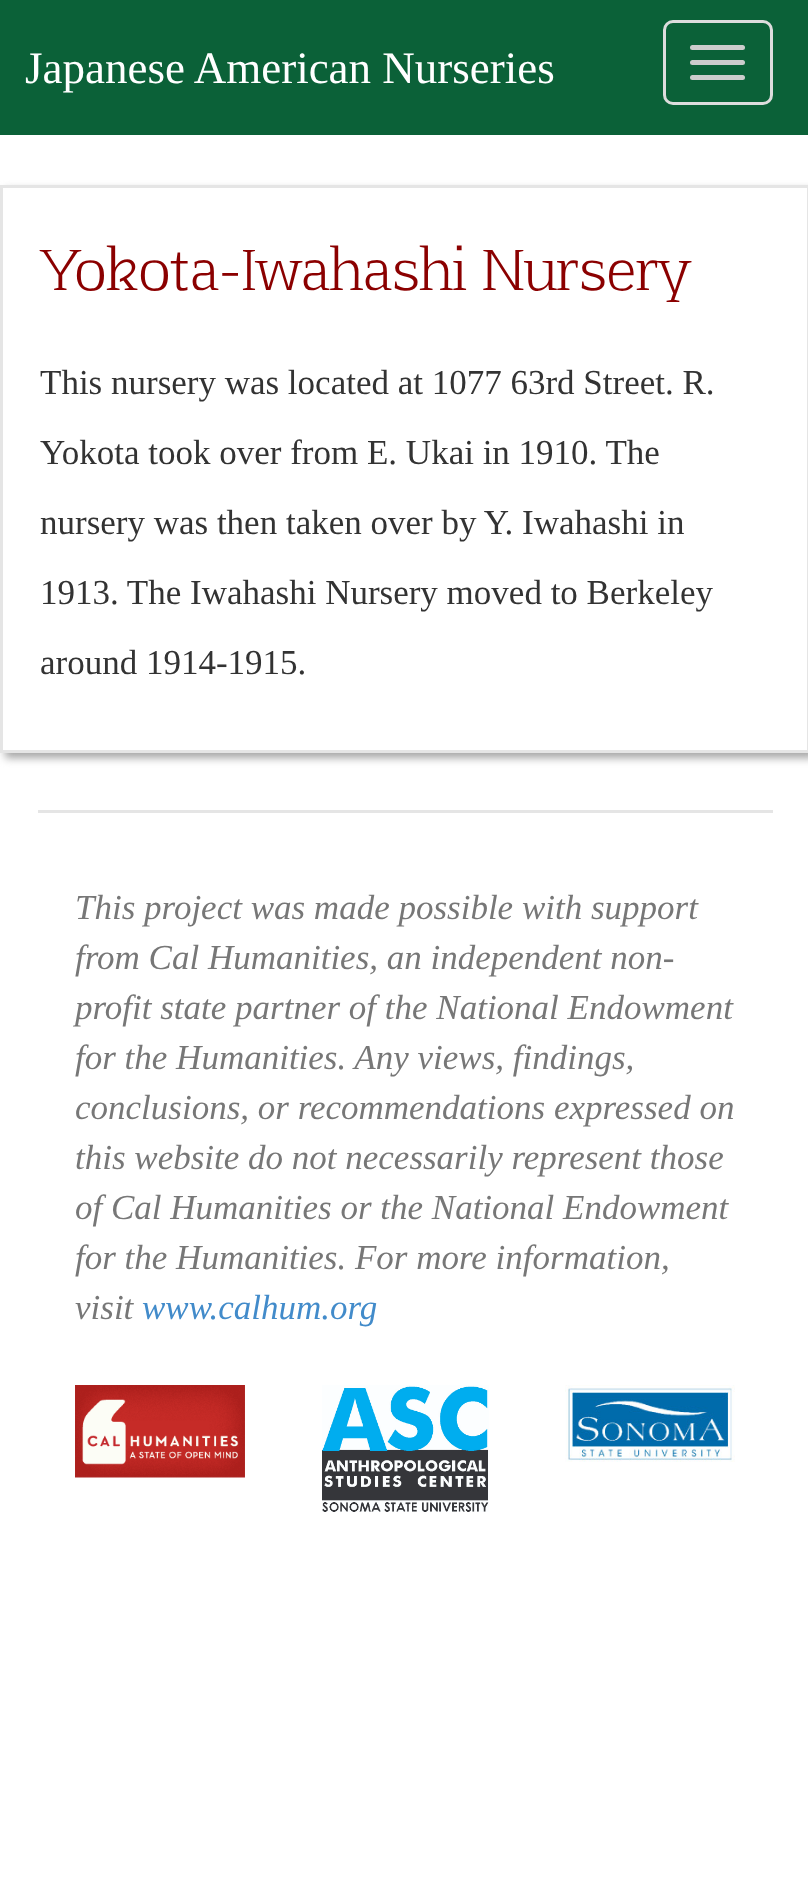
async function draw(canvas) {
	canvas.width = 808;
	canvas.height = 1899;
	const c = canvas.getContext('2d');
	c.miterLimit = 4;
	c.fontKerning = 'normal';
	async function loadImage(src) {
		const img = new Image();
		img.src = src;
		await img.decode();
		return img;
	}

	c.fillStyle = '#fff';
	c.fillRect(0, 0, 808, 1899);
	c.fillStyle = '#0b6138';
	c.fillRect(0, 0, 808, 135);
	c.font = '45px Liberation Serif';
	c.fillStyle = '#fff';
	c.fillText('Japanese American Nurseries', 25, 83);
	c.beginPath();
	c.roundRect(664.5, 21.5, 107, 82, 8.5);
	c.strokeStyle = '#ddd';
	c.lineWidth = 3;
	c.stroke();
	c.fillStyle = '#ccc';
	c.beginPath();
	c.roundRect(690, 45, 55, 5, 2.5);
	c.fill();
	c.beginPath();
	c.roundRect(690, 60, 55, 5, 2.5);
	c.fill();
	c.beginPath();
	c.roundRect(690, 75, 55, 5, 2.5);
	c.fill();
	c.save();
	c.beginPath();
	c.moveTo(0, 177);
	c.lineTo(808, 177);
	c.lineTo(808, 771);
	c.lineTo(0, 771);
	c.closePath();
	c.moveTo(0, 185);
	c.lineTo(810, 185);
	c.lineTo(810, 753);
	c.lineTo(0, 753);
	c.closePath();
	c.clip('evenodd');
	c.fillStyle = '#a5a5a5';
	c.filter = 'blur(4px)';
	c.beginPath();
	c.rect(5, 190, 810, 568);
	c.fill();
	c.filter = 'none';
	c.restore();
	c.strokeStyle = '#e5e5e5';
	c.strokeRect(1.5, 186.5, 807, 565);
	c.font = '56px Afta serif';
	c.fillStyle = '#8b0000';
	c.fillText('Yokota-Iwahashi Nursery', 40, 290);
	c.font = '35px Liberation Serif';
	c.fillStyle = '#333';
	for (const [text, x, y] of [
		['This nursery was located at 1077 63rd Street. R.', 40, 394],
		['Yokota took over from E. Ukai in 1910. The', 40, 464],
		['nursery was then taken over by Y. Iwahashi in', 40, 534],
		['1913. The Iwahashi Nursery moved to Berkeley', 40, 604],
		['around 1914-1915.', 40, 674],
	]) {
		c.fillText(text, x, y);
	}
	c.fillStyle = '#e5e5e5';
	c.fillRect(38, 810, 735, 3);
	c.font = 'italic 35px Liberation Serif';
	c.fillStyle = '#777';
	for (const [text, x, y] of [
		['This project was made possible with support', 75, 919],
		['from Cal Humanities, an independent non-', 75, 969],
		['profit state partner of the National Endowment', 75, 1019],
		['for the Humanities. Any views, findings,', 75, 1069],
		['conclusions, or recommendations expressed on', 75, 1119],
		['this website do not necessarily represent those', 75, 1169],
		['of Cal Humanities or the National Endowment', 75, 1219],
		['for the Humanities. For more information,', 75, 1269],
		['visit', 75, 1319],
	]) {
		c.fillText(text, x, y);
	}
	c.fillStyle = '#428bca';
	c.fillText('www.calhum.org', 142, 1319);
	c.drawImage(await loadImage('img1.png'), 75, 1385, 170, 93);
	c.drawImage(await loadImage('img2.png'), 322, 1385, 167, 127);
	c.drawImage(await loadImage('img3.png'), 565, 1385, 170, 77);
}

draw(document.querySelector('canvas'));
